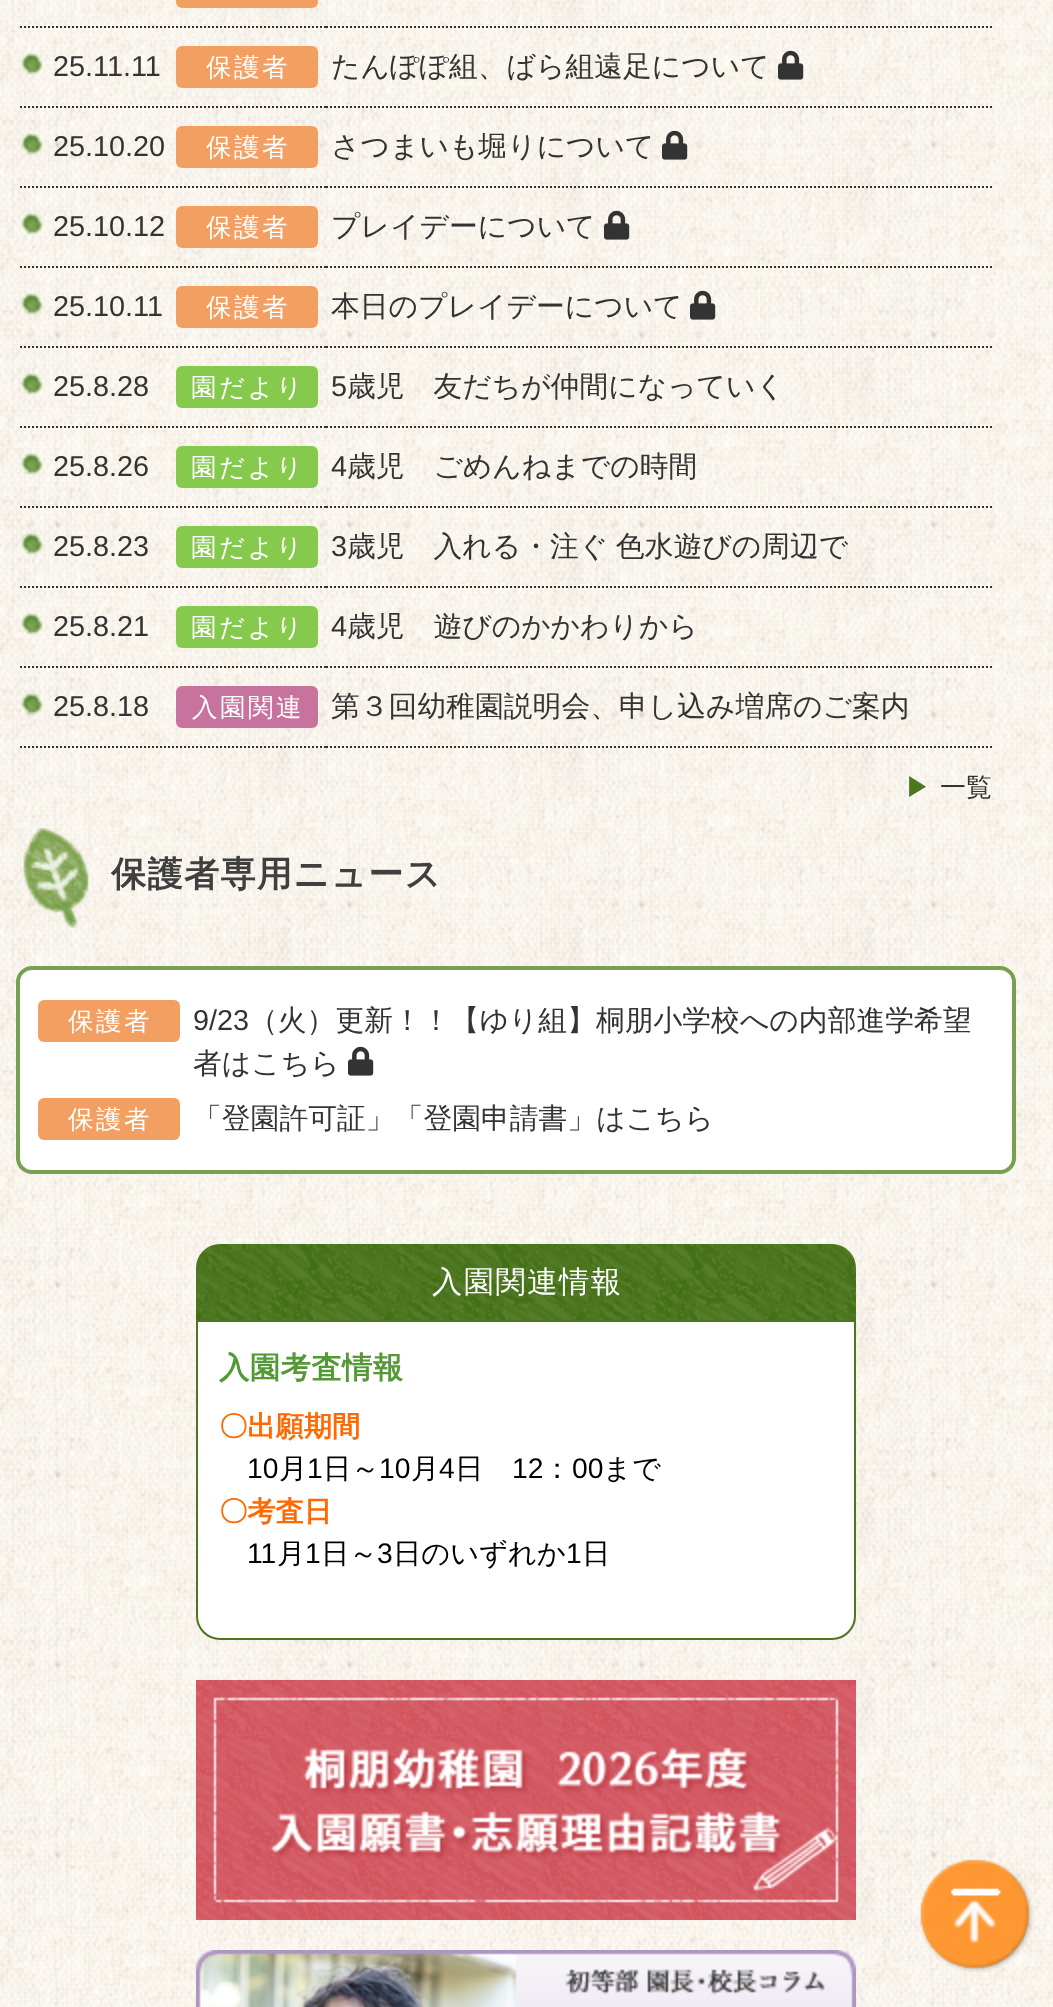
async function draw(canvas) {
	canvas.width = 1053;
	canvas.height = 2007;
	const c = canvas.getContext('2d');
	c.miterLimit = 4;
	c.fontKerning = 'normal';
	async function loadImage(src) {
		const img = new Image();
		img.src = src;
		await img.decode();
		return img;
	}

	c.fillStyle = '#fff';
	c.fillRect(0, 0, 1053, 2007);
	c.drawImage(await loadImage('img1.png'), 0, 0, 1053, 2007);
	c.beginPath();
	c.moveTo(20, 27);
	c.lineTo(168, 27);
	c.strokeStyle = '#333';
	c.lineWidth = 2;
	c.setLineDash([2, 2]);
	c.stroke();
	c.beginPath();
	c.moveTo(168, 27);
	c.lineTo(326, 27);
	c.stroke();
	c.fillStyle = '#f39f61';
	c.beginPath();
	c.roundRect(176, -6, 142, 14, 6);
	c.fill();
	c.beginPath();
	c.moveTo(326, 27);
	c.lineTo(992, 27);
	c.stroke();
	c.drawImage(await loadImage('img2.png'), 21, 53, 22, 22);
	c.beginPath();
	c.moveTo(20, 107);
	c.lineTo(168, 107);
	c.stroke();
	c.font = '28.8px Liberation Sans';
	c.fillStyle = '#333';
	c.fillText('25.11.11', 53, 76);
	c.beginPath();
	c.moveTo(168, 107);
	c.lineTo(326, 107);
	c.stroke();
	c.fillStyle = '#f39f61';
	c.beginPath();
	c.roundRect(176, 46, 142, 42, 6);
	c.fill();
	c.letterSpacing = '2.5px';
	c.font = '500 25.5px WenQuanYi Zen Hei';
	c.fillStyle = '#fff';
	c.fillText('保護者', 206, 76);
	c.beginPath();
	c.moveTo(326, 107);
	c.lineTo(992, 107);
	c.stroke();
	c.letterSpacing = '0px';
	c.font = '500 28.8px WenQuanYi Zen Hei';
	c.fillStyle = '#333';
	c.fillText('たんぽぽ組、ばら組遠足について', 331, 76);
	c.drawImage(await loadImage('img3.png'), 778, 50, 26, 30);
	c.drawImage(await loadImage('img4.png'), 21, 133, 22, 22);
	c.beginPath();
	c.moveTo(20, 187);
	c.lineTo(168, 187);
	c.stroke();
	c.font = '28.8px Liberation Sans';
	c.fillText('25.10.20', 53, 156);
	c.beginPath();
	c.moveTo(168, 187);
	c.lineTo(326, 187);
	c.stroke();
	c.fillStyle = '#f39f61';
	c.beginPath();
	c.roundRect(176, 126, 142, 42, 6);
	c.fill();
	c.letterSpacing = '2.5px';
	c.font = '500 25.5px WenQuanYi Zen Hei';
	c.fillStyle = '#fff';
	c.fillText('保護者', 206, 156);
	c.beginPath();
	c.moveTo(326, 187);
	c.lineTo(992, 187);
	c.stroke();
	c.letterSpacing = '0px';
	c.font = '500 28.8px WenQuanYi Zen Hei';
	c.fillStyle = '#333';
	c.fillText('さつまいも堀りについて', 331, 156);
	c.drawImage(await loadImage('img5.png'), 662, 130, 26, 30);
	c.drawImage(await loadImage('img6.png'), 21, 213, 22, 22);
	c.beginPath();
	c.moveTo(20, 267);
	c.lineTo(168, 267);
	c.stroke();
	c.font = '28.8px Liberation Sans';
	c.fillText('25.10.12', 53, 236);
	c.beginPath();
	c.moveTo(168, 267);
	c.lineTo(326, 267);
	c.stroke();
	c.fillStyle = '#f39f61';
	c.beginPath();
	c.roundRect(176, 206, 142, 42, 6);
	c.fill();
	c.letterSpacing = '2.5px';
	c.font = '500 25.5px WenQuanYi Zen Hei';
	c.fillStyle = '#fff';
	c.fillText('保護者', 206, 236);
	c.beginPath();
	c.moveTo(326, 267);
	c.lineTo(992, 267);
	c.stroke();
	c.letterSpacing = '0px';
	c.font = '500 28.8px WenQuanYi Zen Hei';
	c.fillStyle = '#333';
	c.fillText('プレイデーについて', 331, 236);
	c.drawImage(await loadImage('img7.png'), 604, 210, 26, 30);
	c.drawImage(await loadImage('img8.png'), 21, 293, 22, 22);
	c.beginPath();
	c.moveTo(20, 347);
	c.lineTo(168, 347);
	c.stroke();
	c.font = '28.8px Liberation Sans';
	c.fillText('25.10.11', 53, 316);
	c.beginPath();
	c.moveTo(168, 347);
	c.lineTo(326, 347);
	c.stroke();
	c.fillStyle = '#f39f61';
	c.beginPath();
	c.roundRect(176, 286, 142, 42, 6);
	c.fill();
	c.letterSpacing = '2.5px';
	c.font = '500 25.5px WenQuanYi Zen Hei';
	c.fillStyle = '#fff';
	c.fillText('保護者', 206, 316);
	c.beginPath();
	c.moveTo(326, 347);
	c.lineTo(992, 347);
	c.stroke();
	c.letterSpacing = '0px';
	c.font = '500 28.8px WenQuanYi Zen Hei';
	c.fillStyle = '#333';
	c.fillText('本日のプレイデーについて', 331, 316);
	c.drawImage(await loadImage('img9.png'), 690, 290, 26, 30);
	c.drawImage(await loadImage('img10.png'), 21, 373, 22, 22);
	c.beginPath();
	c.moveTo(20, 427);
	c.lineTo(168, 427);
	c.stroke();
	c.font = '28.8px Liberation Sans';
	c.fillText('25.8.28', 53, 396);
	c.beginPath();
	c.moveTo(168, 427);
	c.lineTo(326, 427);
	c.stroke();
	c.fillStyle = '#85ca4d';
	c.beginPath();
	c.roundRect(176, 366, 142, 42, 6);
	c.fill();
	c.letterSpacing = '2.5px';
	c.font = '500 25.5px WenQuanYi Zen Hei';
	c.fillStyle = '#fff';
	c.fillText('園だより', 191, 396);
	c.beginPath();
	c.moveTo(326, 427);
	c.lineTo(992, 427);
	c.stroke();
	c.letterSpacing = '0px';
	c.font = '28.8px Liberation Sans';
	c.fillStyle = '#333';
	c.fillText('5', 331, 396);
	c.font = '500 28.8px WenQuanYi Zen Hei';
	c.fillText('歳児　友だちが仲間になっていく', 347, 396);
	c.drawImage(await loadImage('img11.png'), 21, 453, 22, 22);
	c.beginPath();
	c.moveTo(20, 507);
	c.lineTo(168, 507);
	c.stroke();
	c.font = '28.8px Liberation Sans';
	c.fillText('25.8.26', 53, 476);
	c.beginPath();
	c.moveTo(168, 507);
	c.lineTo(326, 507);
	c.stroke();
	c.fillStyle = '#85ca4d';
	c.beginPath();
	c.roundRect(176, 446, 142, 42, 6);
	c.fill();
	c.letterSpacing = '2.5px';
	c.font = '500 25.5px WenQuanYi Zen Hei';
	c.fillStyle = '#fff';
	c.fillText('園だより', 191, 476);
	c.beginPath();
	c.moveTo(326, 507);
	c.lineTo(992, 507);
	c.stroke();
	c.letterSpacing = '0px';
	c.font = '28.8px Liberation Sans';
	c.fillStyle = '#333';
	c.fillText('4', 331, 476);
	c.font = '500 28.8px WenQuanYi Zen Hei';
	c.fillText('歳児　ごめんねまでの時間', 347, 476);
	c.drawImage(await loadImage('img12.png'), 21, 533, 22, 22);
	c.beginPath();
	c.moveTo(20, 587);
	c.lineTo(168, 587);
	c.stroke();
	c.font = '28.8px Liberation Sans';
	c.fillText('25.8.23', 53, 556);
	c.beginPath();
	c.moveTo(168, 587);
	c.lineTo(326, 587);
	c.stroke();
	c.fillStyle = '#85ca4d';
	c.beginPath();
	c.roundRect(176, 526, 142, 42, 6);
	c.fill();
	c.letterSpacing = '2.5px';
	c.font = '500 25.5px WenQuanYi Zen Hei';
	c.fillStyle = '#fff';
	c.fillText('園だより', 191, 556);
	c.beginPath();
	c.moveTo(326, 587);
	c.lineTo(992, 587);
	c.stroke();
	c.letterSpacing = '0px';
	c.font = '28.8px Liberation Sans';
	c.fillStyle = '#333';
	c.fillText('3', 331, 556);
	c.wordSpacing = '-1px';
	c.font = '500 28.8px WenQuanYi Zen Hei';
	c.fillText('歳児　入れる・注ぐ ⾊⽔遊びの周辺で', 347, 556);
	c.drawImage(await loadImage('img13.png'), 21, 613, 22, 22);
	c.beginPath();
	c.moveTo(20, 667);
	c.lineTo(168, 667);
	c.stroke();
	c.wordSpacing = '0px';
	c.font = '28.8px Liberation Sans';
	c.fillText('25.8.21', 53, 636);
	c.beginPath();
	c.moveTo(168, 667);
	c.lineTo(326, 667);
	c.stroke();
	c.fillStyle = '#85ca4d';
	c.beginPath();
	c.roundRect(176, 606, 142, 42, 6);
	c.fill();
	c.letterSpacing = '2.5px';
	c.font = '500 25.5px WenQuanYi Zen Hei';
	c.fillStyle = '#fff';
	c.fillText('園だより', 191, 636);
	c.beginPath();
	c.moveTo(326, 667);
	c.lineTo(992, 667);
	c.stroke();
	c.letterSpacing = '0px';
	c.font = '28.8px Liberation Sans';
	c.fillStyle = '#333';
	c.fillText('4', 331, 636);
	c.font = '500 28.8px WenQuanYi Zen Hei';
	c.fillText('歳児　遊びのかかわりから', 347, 636);
	c.drawImage(await loadImage('img14.png'), 21, 693, 22, 22);
	c.beginPath();
	c.moveTo(20, 747);
	c.lineTo(168, 747);
	c.stroke();
	c.font = '28.8px Liberation Sans';
	c.fillText('25.8.18', 53, 716);
	c.beginPath();
	c.moveTo(168, 747);
	c.lineTo(326, 747);
	c.stroke();
	c.fillStyle = '#c8739d';
	c.beginPath();
	c.roundRect(176, 686, 142, 42, 6);
	c.fill();
	c.letterSpacing = '2.5px';
	c.font = '500 25.5px WenQuanYi Zen Hei';
	c.fillStyle = '#fff';
	c.fillText('入園関連', 192, 716);
	c.beginPath();
	c.moveTo(326, 747);
	c.lineTo(992, 747);
	c.stroke();
	c.letterSpacing = '0px';
	c.font = '500 28.8px WenQuanYi Zen Hei';
	c.fillStyle = '#333';
	c.fillText('第３回幼稚園説明会、申し込み増席のご案内', 331, 716);
	c.letterSpacing = '1px';
	c.font = '500 26px WenQuanYi Zen Hei';
	c.fillStyle = '#4c7620';
	c.fillText('▶', 905, 796);
	c.letterSpacing = '0px';
	c.fillStyle = '#333';
	c.fillText('一覧', 940, 796);
	c.drawImage(await loadImage('img15.png'), 23, 828, 66, 100);
	c.letterSpacing = '1.5px';
	c.font = 'bold 35px WenQuanYi Zen Hei';
	c.fillStyle = '#3f3f3f';
	c.fillText('保護者専用ニュース', 111, 886);
	c.fillStyle = '#fff';
	c.beginPath();
	c.roundRect(18, 968, 996, 204, 14);
	c.fill();
	c.strokeStyle = '#799f53';
	c.lineWidth = 4;
	c.setLineDash([]);
	c.stroke();
	c.fillStyle = '#f39f61';
	c.beginPath();
	c.roundRect(38, 1000, 142, 42, 6);
	c.fill();
	c.letterSpacing = '2.5px';
	c.font = '500 25.5px WenQuanYi Zen Hei';
	c.fillStyle = '#fff';
	c.fillText('保護者', 68, 1030);
	c.letterSpacing = '0px';
	c.font = '28.8px Liberation Sans';
	c.fillStyle = '#333';
	c.fillText('9/23', 193, 1030);
	c.font = '500 28.8px WenQuanYi Zen Hei';
	c.fillText('（火）更新！！【ゆり組】桐朋小学校への内部進学希望', 249, 1030);
	c.fillText('者はこちら', 193, 1073);
	c.drawImage(await loadImage('img16.png'), 348, 1046, 26, 30);
	c.fillStyle = '#f39f61';
	c.beginPath();
	c.roundRect(38, 1098, 142, 42, 6);
	c.fill();
	c.letterSpacing = '2.5px';
	c.font = '500 25.5px WenQuanYi Zen Hei';
	c.fillStyle = '#fff';
	c.fillText('保護者', 68, 1128);
	c.letterSpacing = '0px';
	c.font = '500 28.8px WenQuanYi Zen Hei';
	c.fillStyle = '#333';
	c.fillText('「登園許可証」「登園申請書」はこちら', 193, 1128);
	c.drawImage(await loadImage('img17.png'), 196, 1244, 660, 76);
	c.letterSpacing = '1.5px';
	c.font = '500 30.25px WenQuanYi Zen Hei';
	c.fillStyle = '#fff';
	c.fillText('入園関連情報', 432, 1292);
	c.beginPath();
	c.roundRect(197, 1321, 658, 318, [0, 0, 23, 23]);
	c.fill();
	c.strokeStyle = '#4c7620';
	c.lineWidth = 2;
	c.stroke();
	c.letterSpacing = '0.5px';
	c.font = 'bold 30.25px WenQuanYi Zen Hei';
	c.fillStyle = '#559937';
	c.fillText('入園考査情報', 219, 1378);
	c.letterSpacing = '0px';
	c.font = 'bold 28.25px WenQuanYi Zen Hei';
	c.fillStyle = '#ff6900';
	c.fillText('〇出願期間', 219, 1436);
	c.font = '28.25px Liberation Sans';
	c.fillStyle = '#000';
	c.fillText('10', 247, 1478);
	c.font = '500 28.25px WenQuanYi Zen Hei';
	c.fillText('月', 279, 1478);
	c.font = '28.25px Liberation Sans';
	c.fillText('1', 307, 1478);
	c.font = '500 28.25px WenQuanYi Zen Hei';
	c.fillText('日～', 323, 1478);
	c.font = '28.25px Liberation Sans';
	c.fillText('10', 379, 1478);
	c.font = '500 28.25px WenQuanYi Zen Hei';
	c.fillText('月', 411, 1478);
	c.font = '28.25px Liberation Sans';
	c.fillText('4', 439, 1478);
	c.font = '500 28.25px WenQuanYi Zen Hei';
	c.fillText('日', 455, 1478);
	c.font = '28.25px Liberation Sans';
	c.fillText('12', 512, 1478);
	c.font = '500 28.25px WenQuanYi Zen Hei';
	c.fillText('：', 543, 1478);
	c.font = '28.25px Liberation Sans';
	c.fillText('00', 572, 1478);
	c.font = '500 28.25px WenQuanYi Zen Hei';
	c.fillText('まで', 603, 1478);
	c.font = 'bold 28.25px WenQuanYi Zen Hei';
	c.fillStyle = '#ff6900';
	c.fillText('〇考査日', 219, 1521);
	c.font = '28.25px Liberation Sans';
	c.fillStyle = '#000';
	c.fillText('11', 247, 1563);
	c.font = '500 28.25px WenQuanYi Zen Hei';
	c.fillText('月', 277, 1563);
	c.font = '28.25px Liberation Sans';
	c.fillText('1', 305, 1563);
	c.font = '500 28.25px WenQuanYi Zen Hei';
	c.fillText('日～', 321, 1563);
	c.font = '28.25px Liberation Sans';
	c.fillText('3', 377, 1563);
	c.font = '500 28.25px WenQuanYi Zen Hei';
	c.fillText('日のいずれか', 393, 1563);
	c.font = '28.25px Liberation Sans';
	c.fillText('1', 566, 1563);
	c.font = '500 28.25px WenQuanYi Zen Hei';
	c.fillText('日', 582, 1563);
	c.drawImage(await loadImage('img18.png'), 196, 1680, 660, 240);
	c.drawImage(await loadImage('img19.png'), 196, 1950, 660, 57);
	c.drawImage(await loadImage('img20.png'), 919, 1859, 115, 114);
}

draw(document.querySelector('canvas'));
